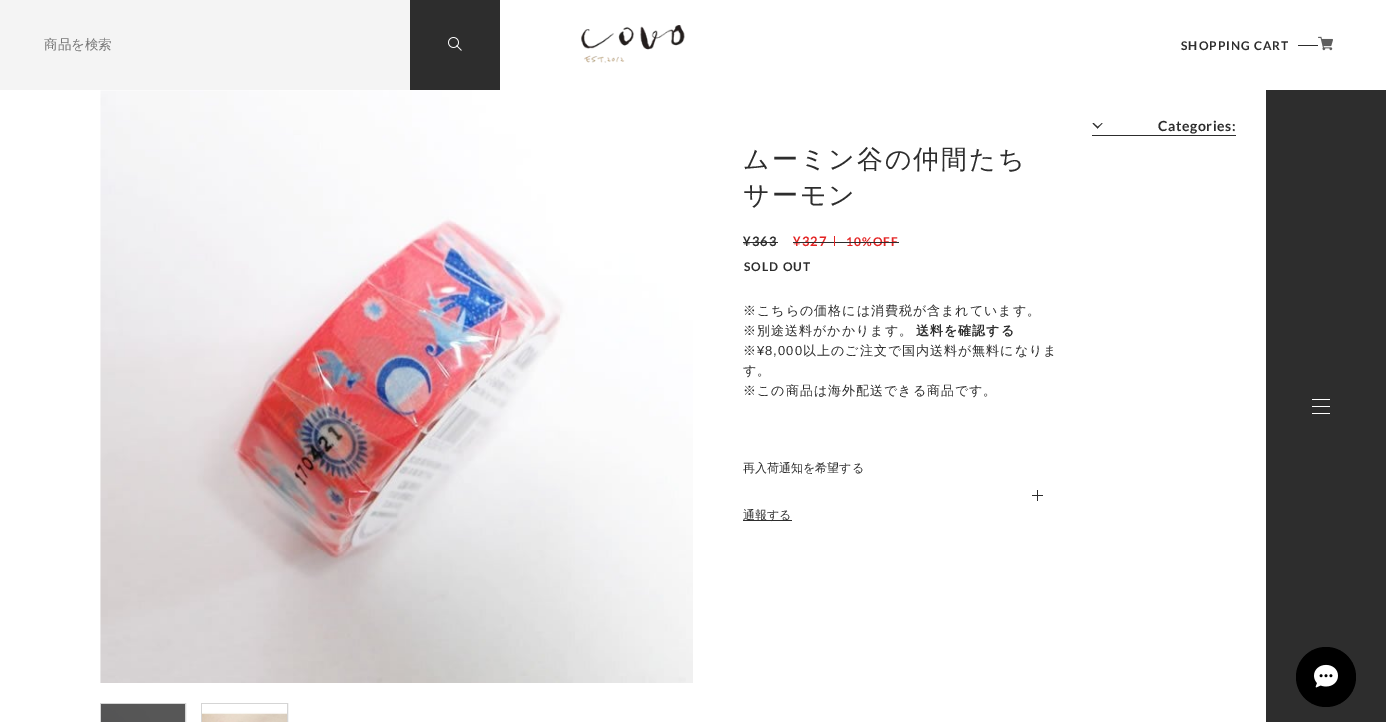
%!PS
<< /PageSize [1386 722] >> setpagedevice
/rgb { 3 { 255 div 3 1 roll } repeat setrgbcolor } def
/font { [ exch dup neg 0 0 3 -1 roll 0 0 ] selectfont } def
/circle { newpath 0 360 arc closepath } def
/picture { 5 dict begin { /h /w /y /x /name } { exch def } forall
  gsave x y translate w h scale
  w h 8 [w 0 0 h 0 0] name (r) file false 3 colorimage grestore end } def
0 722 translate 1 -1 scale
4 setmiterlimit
255 255 255 rgb
0 0 1386 722 rectfill
244 244 244 rgb
0 0 410 90 rectfill
45 45 45 rgb
410 0 90 90 rectfill
(img/1.rgb) 448 37 14 14 picture
(img/2.rgb) 581 25 104 38 picture
1298 45 20 1 rectfill
1102 123 moveto 1102.5 123.5 lineto 1097.5 128.5 lineto 1097 127.5 lineto closepath fill
1093.5 123 moveto 1098.5 127.5 lineto 1097.5 128.5 lineto 1092.5 123.5 lineto closepath fill
[
  [1092 135 144 1 45 45 45]
  [1266 90 120 632 45 45 45]
  [1312 399 18 1 255 255 255]
  [1312 406 18 1 255 255 255]
  [1312 413 18 1 255 255 255]
] { aload pop rgb rectfill } forall
(img/3.rgb) 1318 36 15 15 picture
(img/4.rgb) 100 90 593 593 picture
45 45 45 rgb
100.5 703.5 moveto 185.5 703.5 lineto 185.5 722.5 lineto 100.5 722.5 lineto closepath gsave fill grestore
213 213 213 rgb
stroke
(img/5.rgb) 101 704 84 18 picture
201.5 703.5 86 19 rectstroke
(img/6.rgb) 202 704 85 18 picture
[
  [743 242 35 1 45 45 45]
  [1032 495 11 1 45 45 45]
  [1037 490 1 11 45 45 45]
  [743 520 49 1 45 45 45]
] { aload pop rgb rectfill } forall
0 0 0 rgb
1326 677 30 circle fill
(img/7.rgb) 1314 664 24 24 picture
/WenQuanYiZenHei-Medium 13.5 font
117 117 117 rgb
44 49 moveto (商品を検索) show
/Lato-Bold 12 font
45 45 45 rgb
1181 50 moveto 1 0 (SHOPPING CART) ashow
/Lato-Bold 14 font
1158 131 moveto 0.6 0 (Categories:) ashow
/WenQuanYiZenHei-Medium 26 font
743 168 moveto 2 0 (ムーミン谷の仲間たち) ashow
743 204 moveto 2 0 (サーモン) ashow
/Lato-Bold 13 font
743 246 moveto 1 0 (¥363) ashow
228 36 36 rgb
793 246 moveto 1 0 (¥327) ashow
/Lato-Bold 12 font
846 246 moveto 1 0 (10%OFF) ashow
45 45 45 rgb
793 242 106 1 rectfill
228 36 36 rgb
834 236 1 10 rectfill
45 45 45 rgb
744 271 moveto 1 0 (SOLD OUT) ashow
/WenQuanYiZenHei-Medium 13 font
743 315 moveto 1 0 (※こちらの価格には消費税が含まれています。) ashow
743 335 moveto 1 0 (※別途送料がかかります。) ashow
/WenQuanYiZenHei-Bold 13 font
916 335 moveto 1 0 (送料を確認する) ashow
/WenQuanYiZenHei-Medium 13 font
743 355 moveto 1 0 (※) ashow
/LiberationSans-Regular 13 font
757 355 moveto 1 0 (¥8,000) ashow
/WenQuanYiZenHei-Medium 13 font
803 355 moveto 1 0 (以上のご注文で国内送料が無料になりま) ashow
743 375 moveto 1 0 (す。) ashow
743 395 moveto 1 0 (※この商品は海外配送できる商品です。) ashow
/WenQuanYiZenHei-Medium 12 font
743 472 moveto (再入荷通知を希望する) show
743 519 moveto (通報する) show
showpage
